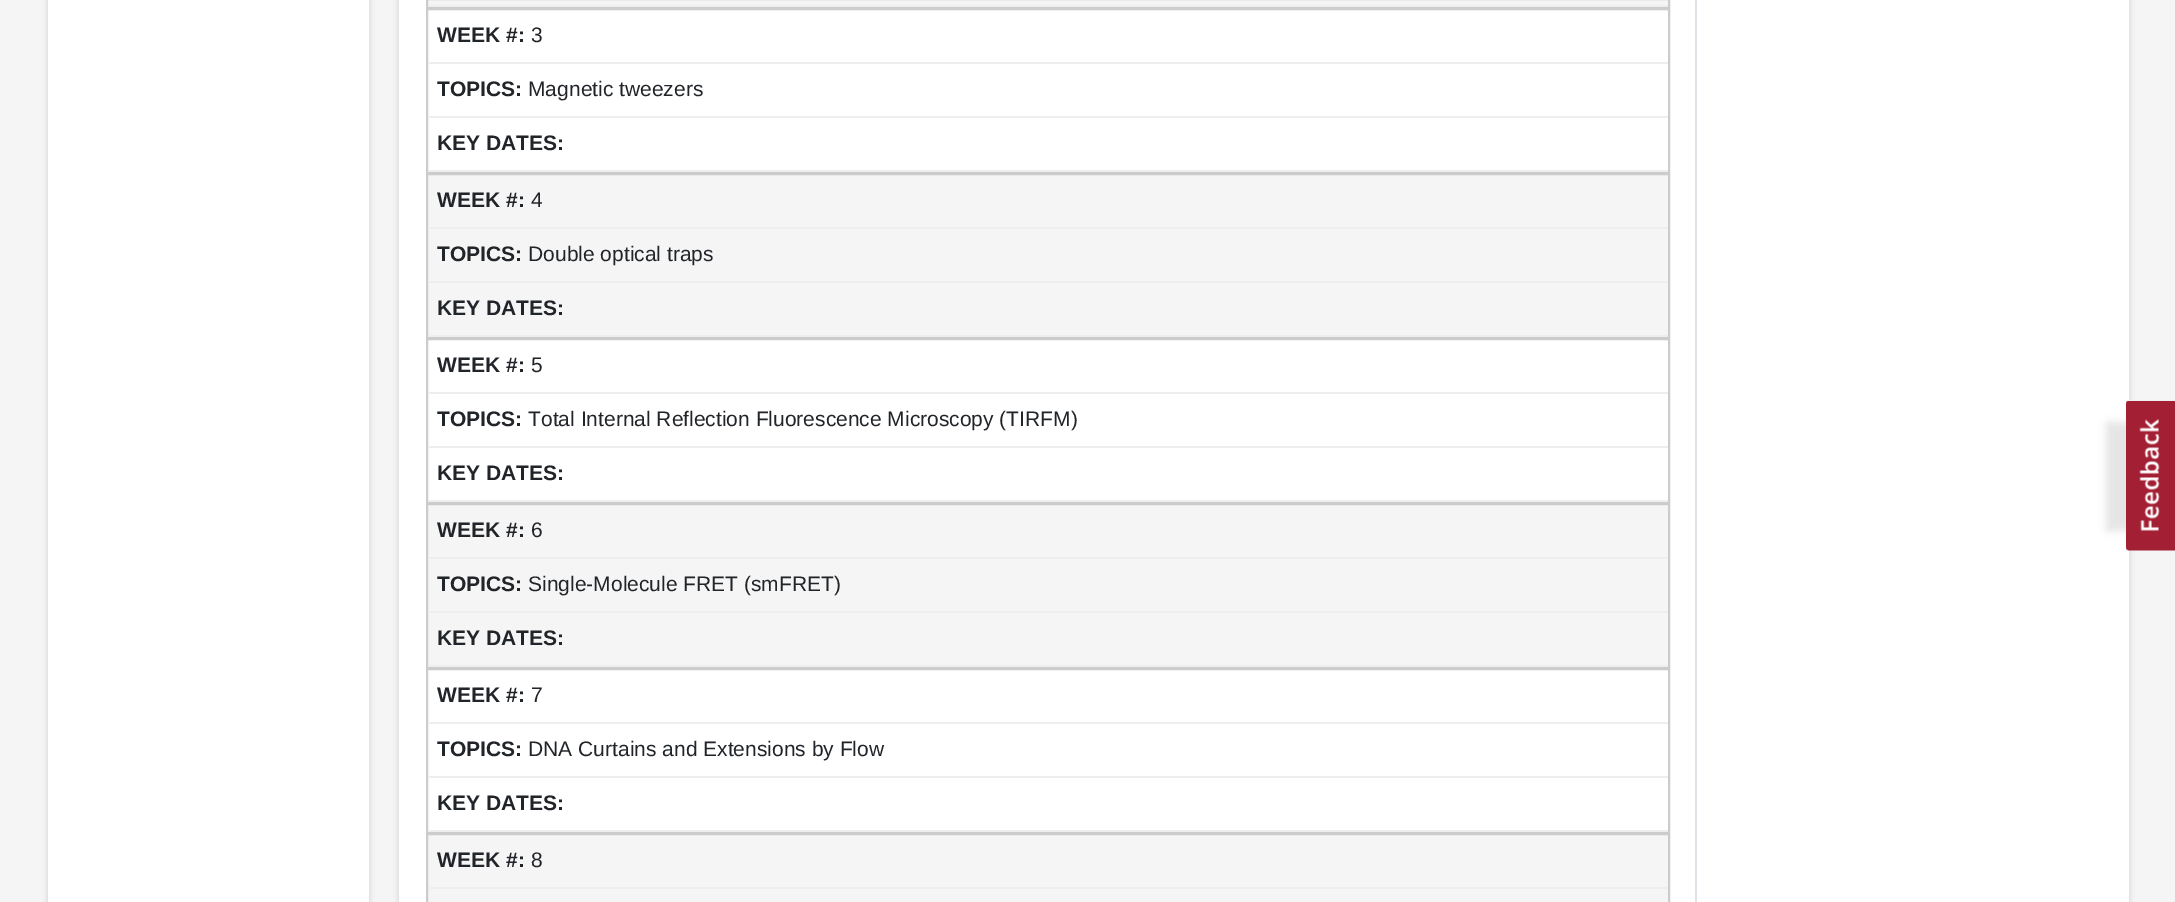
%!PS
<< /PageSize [2175 902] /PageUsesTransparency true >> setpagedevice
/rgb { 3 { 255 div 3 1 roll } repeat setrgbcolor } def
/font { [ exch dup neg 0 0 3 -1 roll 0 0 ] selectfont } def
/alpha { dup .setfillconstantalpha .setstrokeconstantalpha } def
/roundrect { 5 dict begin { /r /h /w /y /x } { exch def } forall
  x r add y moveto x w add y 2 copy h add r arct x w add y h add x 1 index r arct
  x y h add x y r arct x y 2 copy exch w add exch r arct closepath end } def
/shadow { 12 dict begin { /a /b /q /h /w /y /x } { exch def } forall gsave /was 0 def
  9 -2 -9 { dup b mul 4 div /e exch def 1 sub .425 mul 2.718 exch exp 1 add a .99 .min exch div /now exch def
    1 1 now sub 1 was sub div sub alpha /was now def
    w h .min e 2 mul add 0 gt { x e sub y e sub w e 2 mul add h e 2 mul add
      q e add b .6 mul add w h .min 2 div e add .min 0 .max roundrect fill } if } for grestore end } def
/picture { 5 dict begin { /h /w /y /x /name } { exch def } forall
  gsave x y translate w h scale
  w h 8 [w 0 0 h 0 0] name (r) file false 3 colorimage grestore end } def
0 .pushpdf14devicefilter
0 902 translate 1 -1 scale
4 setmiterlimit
245 245 245 rgb
0 0 2175 902 rectfill
0 0 0 rgb
48 -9 321 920 0 3 0.16 shadow
255 255 255 rgb
48 0 321 902 rectfill
0 0 0 rgb
399 -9 1730 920 0 3 0.16 shadow
255 255 255 rgb
399 0 1730 902 rectfill
245 245 245 rgb
426 0 1244 5 rectfill
204 204 204 rgb
2 setlinewidth
427 -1 1242 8 rectstroke
238 238 238 rgb
428 5 1240 2 rectfill
204 204 204 rgb
427 9 1242 163 rectstroke
[
  [428 62 1240 2 238 238 238]
  [428 116 1240 2 238 238 238]
  [428 170 1240 2 238 238 238]
  [428 175 1240 160 245 245 245]
] { aload pop rgb rectfill } forall
204 204 204 rgb
427 174 1242 163 rectstroke
[
  [428 227 1240 2 238 238 238]
  [428 281 1240 2 238 238 238]
  [428 335 1240 2 238 238 238]
] { aload pop rgb rectfill } forall
204 204 204 rgb
427 339 1242 163 rectstroke
[
  [428 392 1240 2 238 238 238]
  [428 446 1240 2 238 238 238]
  [428 500 1240 2 238 238 238]
  [428 505 1240 160 245 245 245]
] { aload pop rgb rectfill } forall
204 204 204 rgb
427 504 1242 163 rectstroke
[
  [428 557 1240 2 238 238 238]
  [428 611 1240 2 238 238 238]
  [428 665 1240 2 238 238 238]
] { aload pop rgb rectfill } forall
204 204 204 rgb
427 669 1242 163 rectstroke
[
  [428 722 1240 2 238 238 238]
  [428 776 1240 2 238 238 238]
  [428 830 1240 2 238 238 238]
] { aload pop rgb rectfill } forall
245 245 245 rgb
427 834 moveto 1669 834 lineto 1669 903 lineto 427 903 lineto closepath gsave fill grestore
204 204 204 rgb
stroke
238 238 238 rgb
428 887 1240 2 rectfill
222 226 230 rgb
1695 0 2 902 rectfill
0 0 0 rgb
2106 422 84 109 3 4 0.1 shadow
239 239 239 rgb
2126 548 moveto 2126 404 lineto 2126 402 2127 400 2128 400 curveto 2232 400 lineto 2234 400 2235 402 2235 404 curveto 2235 548 lineto 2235 549 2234 550 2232 550 curveto 2128 550 lineto 2127 550 2126 549 2126 548 curveto closepath fill
(img/1.rgb) 2126 401 49 150 picture
/LiberationSans-Bold 21 font
33 37 41 rgb
437 42 moveto (WEEK #:) show
/LiberationSans-Regular 21 font
531 42 moveto (3) show
/LiberationSans-Bold 21 font
437 96 moveto (TOPICS:) show
/LiberationSans-Regular 21 font
528 96 moveto (Magnetic tweezers) show
/LiberationSans-Bold 21 font
437 150 moveto (KEY DATES:) show
437 207 moveto (WEEK #:) show
/LiberationSans-Regular 21 font
531 207 moveto (4) show
/LiberationSans-Bold 21 font
437 261 moveto (TOPICS:) show
/LiberationSans-Regular 21 font
528 261 moveto (Double optical traps) show
/LiberationSans-Bold 21 font
437 315 moveto (KEY DATES:) show
437 372 moveto (WEEK #:) show
/LiberationSans-Regular 21 font
531 372 moveto (5) show
/LiberationSans-Bold 21 font
437 426 moveto (TOPICS:) show
/LiberationSans-Regular 21 font
528 426 moveto (Total Internal Reflection Fluorescence Microscopy \(TIRFM\)) show
/LiberationSans-Bold 21 font
437 480 moveto (KEY DATES:) show
437 537 moveto (WEEK #:) show
/LiberationSans-Regular 21 font
531 537 moveto (6) show
/LiberationSans-Bold 21 font
437 591 moveto (TOPICS:) show
/LiberationSans-Regular 21 font
528 591 moveto (Single-Molecule FRET \(smFRET\)) show
/LiberationSans-Bold 21 font
437 645 moveto (KEY DATES:) show
437 702 moveto (WEEK #:) show
/LiberationSans-Regular 21 font
531 702 moveto (7) show
/LiberationSans-Bold 21 font
437 756 moveto (TOPICS:) show
/LiberationSans-Regular 21 font
528 756 moveto (DNA Curtains and Extensions by Flow) show
/LiberationSans-Bold 21 font
437 810 moveto (KEY DATES:) show
437 867 moveto (WEEK #:) show
/LiberationSans-Regular 21 font
531 867 moveto (8) show
.poppdf14devicefilter showpage
